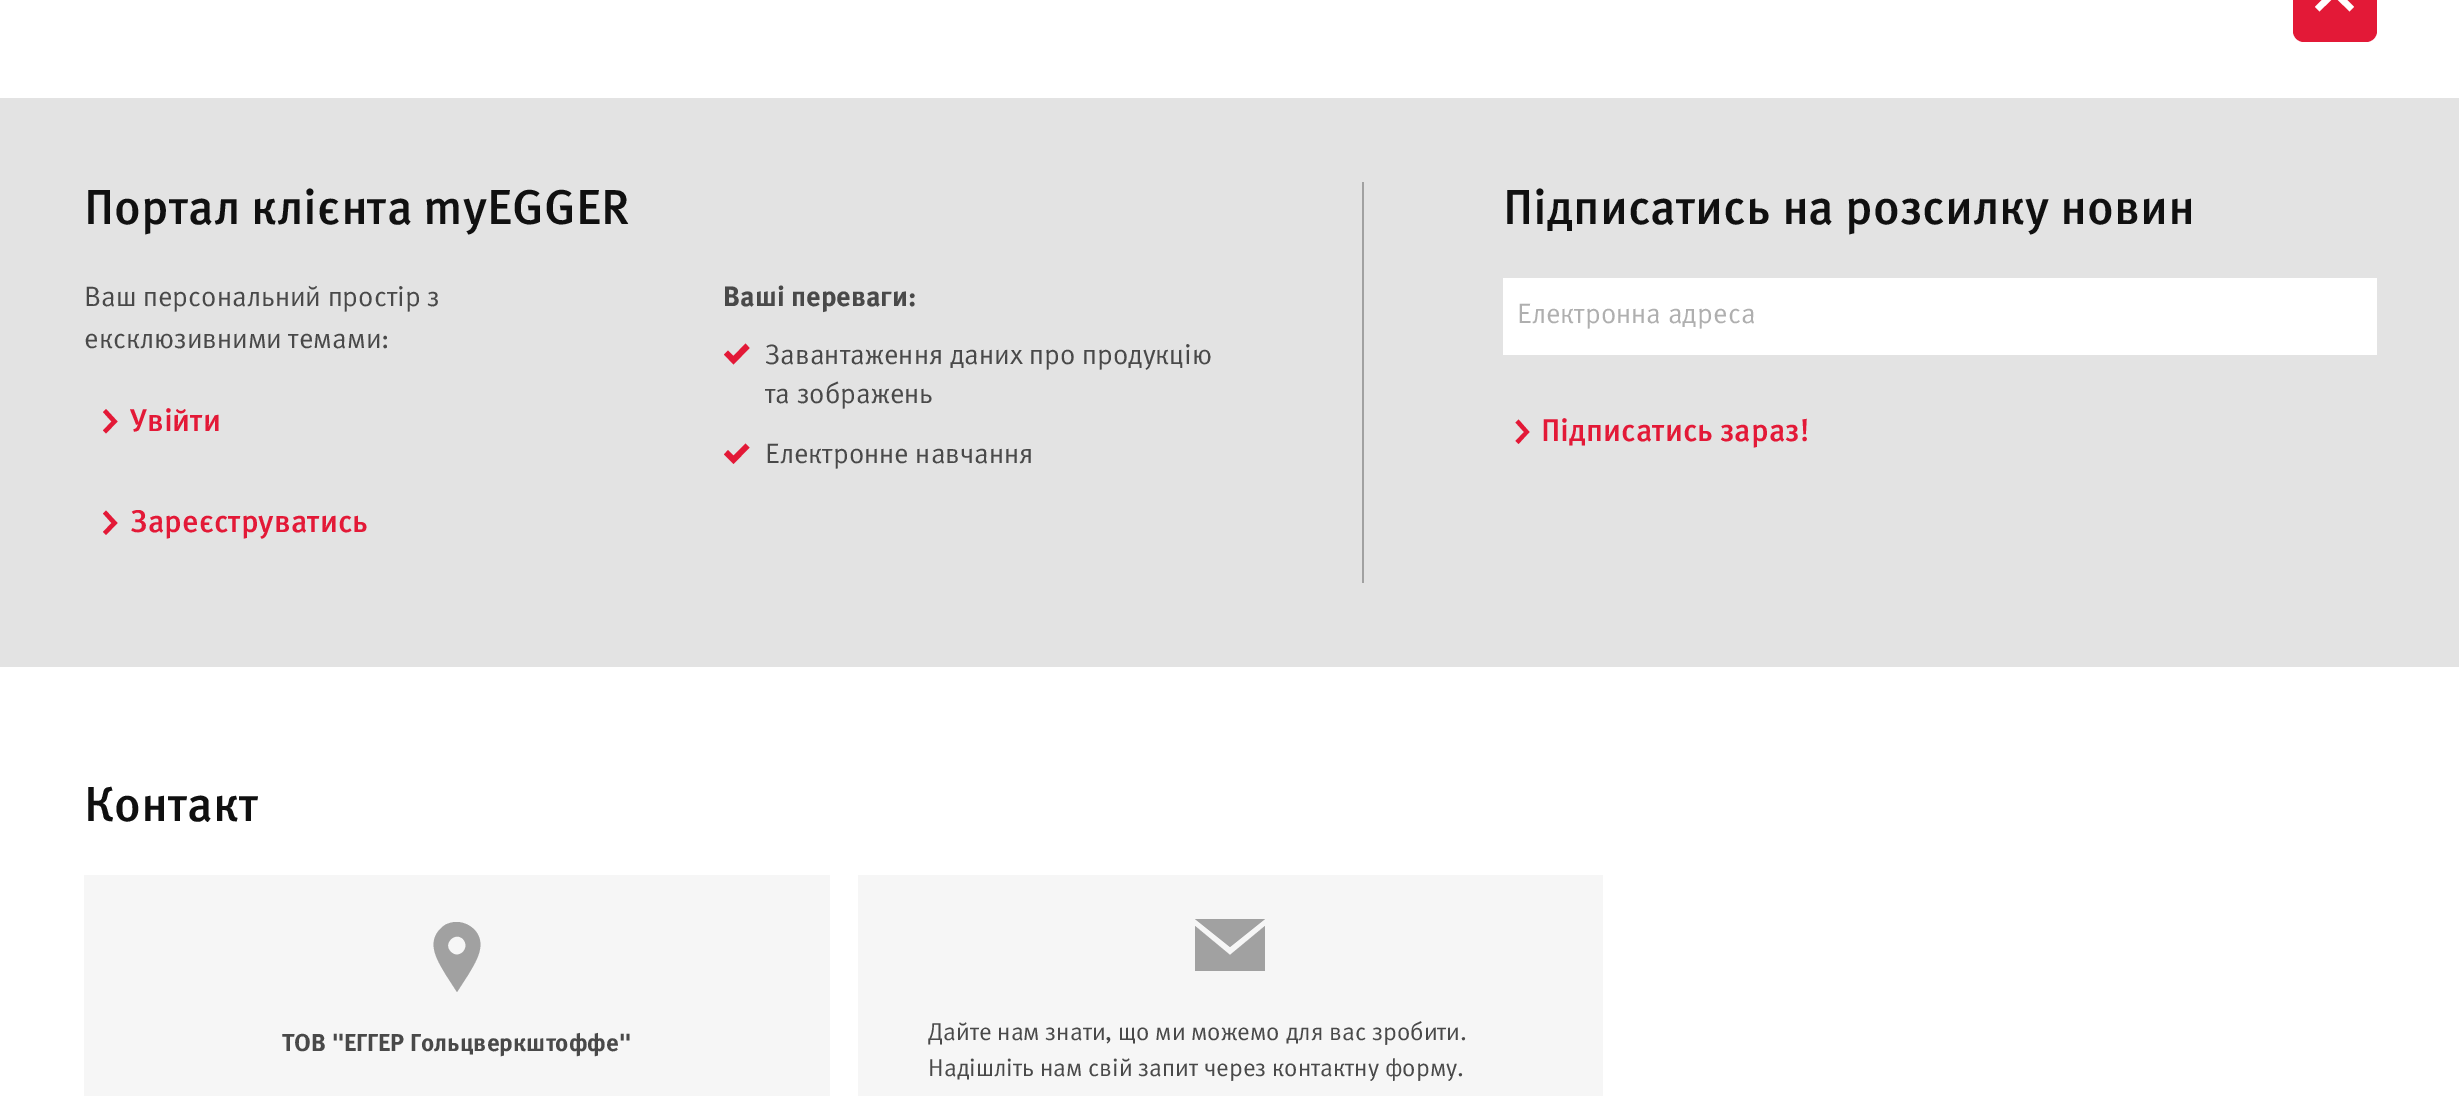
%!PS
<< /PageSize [2459 1096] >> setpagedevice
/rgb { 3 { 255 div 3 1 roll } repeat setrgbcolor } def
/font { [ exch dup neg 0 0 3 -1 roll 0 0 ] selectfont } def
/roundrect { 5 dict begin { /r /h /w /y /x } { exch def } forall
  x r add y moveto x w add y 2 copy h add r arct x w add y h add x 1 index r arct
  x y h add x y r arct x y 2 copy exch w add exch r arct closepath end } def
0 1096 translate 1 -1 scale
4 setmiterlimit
255 255 255 rgb
0 0 2459 1096 rectfill
227 25 55 rgb
2293 -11 84 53 11 roundrect fill
255 255 255 rgb
2349.5 11.5 moveto 2334.5 -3.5 lineto 2319.5 11.5 lineto 2315 7 lineto 2334.5 -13 lineto 2354 7 lineto closepath fill
227 227 227 rgb
0 98 2459 569 rectfill
161 161 161 rgb
1362 182 2 401 rectfill
227 25 55 rgb
106 409 moveto 117.5 421.5 lineto 106 433.5 lineto 103 430.5 lineto 111.5 421.5 lineto 103 412 lineto closepath fill
106 510.5 moveto 117.5 523 lineto 106 535 lineto 103 532 lineto 111.5 523 lineto 103 513.5 lineto closepath fill
733.5 356 moveto 728 350.5 lineto 724 354.5 lineto 733.5 364.5 lineto 749.5 348 lineto 745.5 343.5 lineto closepath fill
733.5 455.5 moveto 728 450 lineto 724 454.5 lineto 733.5 464 lineto 749.5 447.5 lineto 745.5 443.5 lineto closepath fill
255 255 255 rgb
1503 278 874 77 rectfill
227 25 55 rgb
1518.5 419.5 moveto 1529.5 432 lineto 1518.5 444 lineto 1515.5 441 lineto 1524 432 lineto 1515.5 422.5 lineto closepath fill
246 246 246 rgb
84 875 746 221 rectfill
161 161 161 rgb
451 952 moveto 459 960 471 948 463 939 curveto 455 931 442 944 451 952 curveto closepath 445 925 moveto 452 921 461 921 468 925 curveto 472 927 475 930 477 933 curveto 486 947 475 963 468 975 curveto 457 992 lineto 446 975 lineto 439 963 428 947 437 933 curveto 439 930 442 927 445 925 curveto closepath fill
246 246 246 rgb
858 875 745 221 rectfill
161 161 161 rgb
1230 955 moveto 1265 926 lineto 1265 971 lineto 1195 971 lineto 1195 926 lineto closepath 1230 947 moveto 1195 919 lineto 1265 919 lineto closepath fill
/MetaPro-Medium 49 font
16 16 16 rgb
84 224 moveto (Портал клієнта myEGGER) show
/MetaPro-Regular 28 font
73 73 73 rgb
84 306 moveto (Ваш персональний простір з) show
84 348 moveto (ексклюзивними темами:) show
/MetaPro-Medium 31.5 font
227 25 55 rgb
130 431 moveto (Увійти) show
130 532 moveto (Зареєструватись) show
/MetaPro-Bold 28 font
73 73 73 rgb
723 306 moveto (Ваші переваги:) show
/MetaPro-Regular 28 font
[
  [(Завантаження даних про продукцію) 765 364]
  [(та зображень) 765 403]
  [(Електронне навчання) 765 463]
] { aload pop moveto show } forall
/MetaPro-Medium 49 font
16 16 16 rgb
1503 224 moveto (Підписатись на розсилку новин) show
/MetaPro-Regular 28 font
175 175 175 rgb
1517 323 moveto (Електронна адреса) show
/MetaPro-Medium 31.5 font
227 25 55 rgb
1541 441 moveto (Підписатись зараз!) show
/MetaPro-Medium 49 font
16 16 16 rgb
84 821 moveto (Контакт) show
/MetaPro-Bold 24.5 font
73 73 73 rgb
282 1051 moveto (ТОВ "ЕГГЕР Гольцверкштоффе") show
/MetaPro-Regular 24.5 font
928 1040 moveto (Дайте нам знати, що ми можемо для вас зробити.) show
928 1076 moveto (Надішліть нам свій запит через контактну форму.) show
showpage
